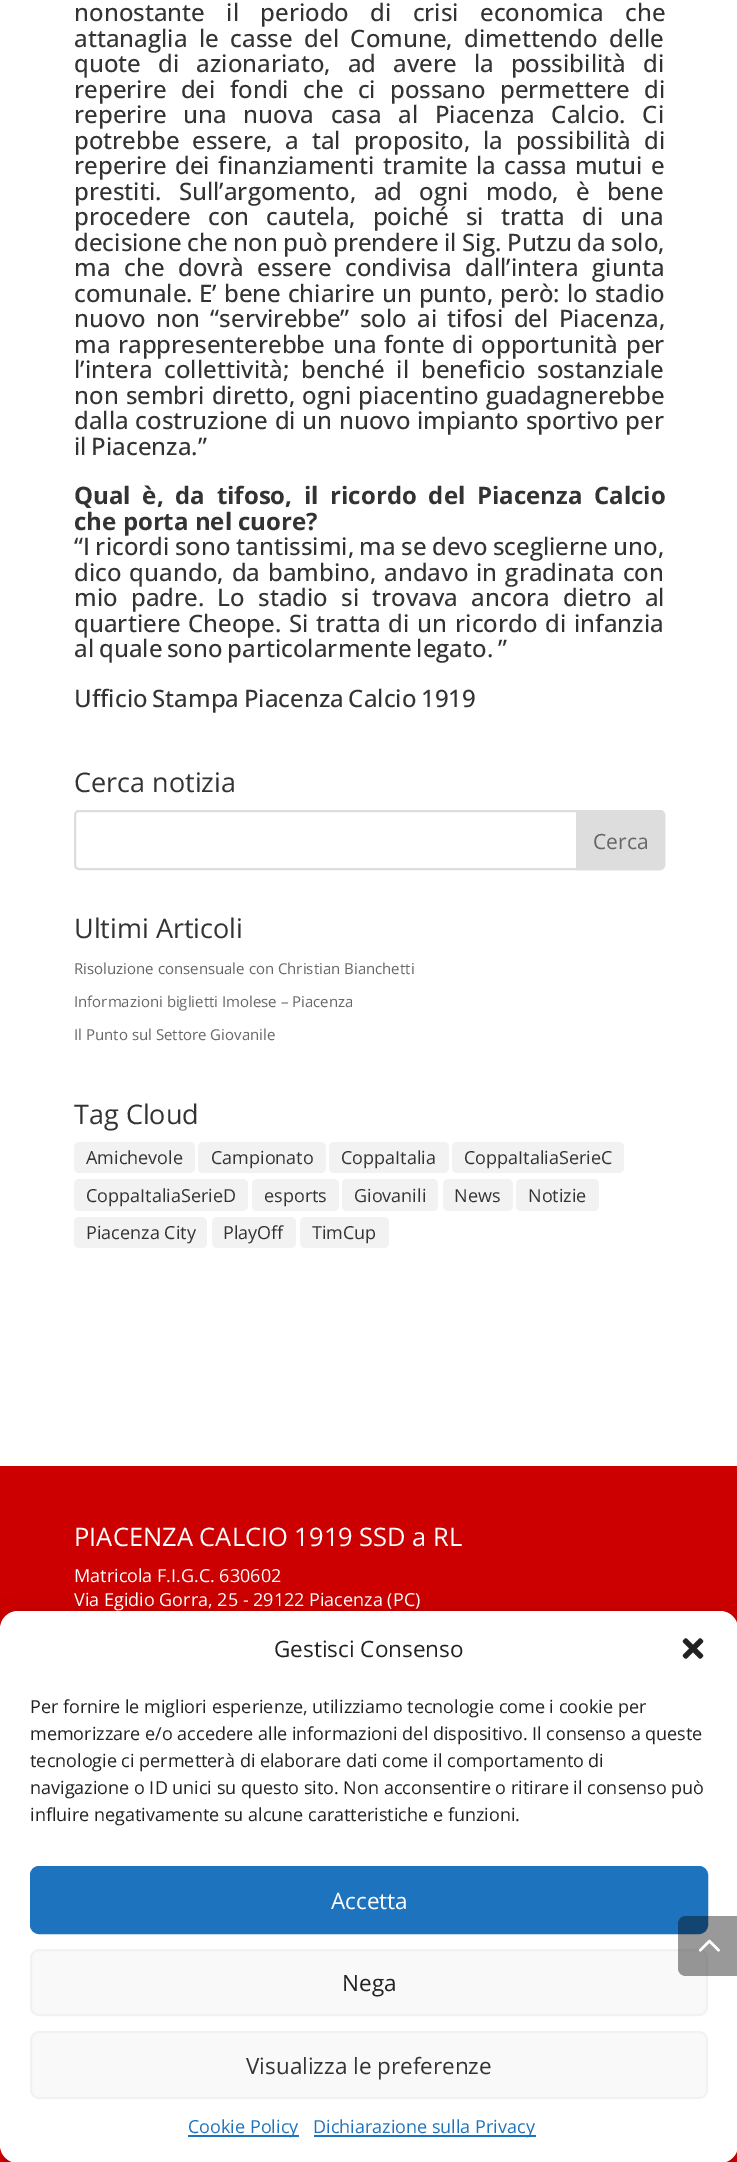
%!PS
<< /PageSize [737 2162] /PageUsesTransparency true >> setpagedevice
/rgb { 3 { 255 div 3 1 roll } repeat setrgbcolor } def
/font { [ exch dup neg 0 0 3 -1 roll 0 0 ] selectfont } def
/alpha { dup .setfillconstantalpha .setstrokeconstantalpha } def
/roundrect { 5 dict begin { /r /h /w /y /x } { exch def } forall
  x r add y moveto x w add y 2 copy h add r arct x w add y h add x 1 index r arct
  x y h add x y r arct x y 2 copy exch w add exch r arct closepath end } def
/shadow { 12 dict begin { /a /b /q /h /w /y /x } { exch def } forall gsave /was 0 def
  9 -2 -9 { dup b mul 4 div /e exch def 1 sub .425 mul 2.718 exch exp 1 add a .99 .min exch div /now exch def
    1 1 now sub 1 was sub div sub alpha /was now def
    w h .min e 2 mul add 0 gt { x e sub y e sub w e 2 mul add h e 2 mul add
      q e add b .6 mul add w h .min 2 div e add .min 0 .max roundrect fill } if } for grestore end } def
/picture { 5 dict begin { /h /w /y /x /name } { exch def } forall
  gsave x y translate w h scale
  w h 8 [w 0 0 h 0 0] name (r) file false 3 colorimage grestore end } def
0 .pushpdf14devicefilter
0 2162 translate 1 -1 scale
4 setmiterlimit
255 255 255 rgb
0 0 737 2162 rectfill
221 221 221 rgb
2 setlinewidth
75 811 589 58 4 roundrect stroke
577 811 moveto 660 811 lineto 662 811 664 813 664 815 curveto 664 865 lineto 664 867 662 869 660 869 curveto 577 869 lineto closepath gsave fill grestore
stroke
242 242 242 rgb
74 1142 121 31 5 roundrect fill
198 1142 128 31 5 roundrect fill
329 1142 120 31 5 roundrect fill
452 1142 172 31 5 roundrect fill
74 1179 174 32 5 roundrect fill
252 1179 87 32 5 roundrect fill
342 1179 96 32 5 roundrect fill
443 1179 70 32 5 roundrect fill
516 1179 83 32 5 roundrect fill
74 1217 133 31 5 roundrect fill
212 1217 84 31 5 roundrect fill
300 1217 89 31 5 roundrect fill
204 0 0 rgb
0 1466 737 163 rectfill
255 0 0 rgb
0 2145 737 17 rectfill
0 0 0 rgb
0 1620 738 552 18 4.5 0.23 shadow
0 1626 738 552 18 15 0.19 shadow
255 255 255 rgb
0 1611 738 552 18 roundrect fill
30 115 190 rgb
31 1867 676 66 8 roundrect gsave fill grestore
stroke
249 249 249 rgb
31 1950 676 65 8 roundrect gsave fill grestore
242 242 242 rgb
stroke
0.4 alpha
0 0 0 rgb
686 1916 moveto 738 1916 lineto 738 1976 lineto 686 1976 lineto 681.5 1976 678 1972.5 678 1968 curveto 678 1924 lineto 678 1919.5 681.5 1916 686 1916 curveto closepath fill
1 alpha
(img/1.rgb) 698 1939 22 13 picture
(img/2.rgb) 682 1638 22 21 picture
249 249 249 rgb
31 2032 676 66 8 roundrect gsave fill grestore
242 242 242 rgb
stroke
30 115 190 rgb
188 2135 111 2 rectfill
314 2135 222 2 rectfill
/OpenSans-Medium 24 font
51 51 51 rgb
74 21 moveto 15 0 32 (nonostante il periodo di crisi economica che) widthshow
74 47 moveto 5.25 0 32 (attanaglia le casse del Comune, dimettendo delle) widthshow
74 72 moveto 10.75 0 32 (quote di azionariato, ad avere la possibilità di) widthshow
74 98 moveto 8 0 32 (reperire dei fondi che ci possano permettere di) widthshow
74 123 moveto 10.5 0 32 (reperire una nuova casa al Piacenza Calcio. Ci) widthshow
74 149 moveto 6.5 0 32 (potrebbe essere, a tal proposito, la possibilità di) widthshow
74 174 moveto 2.25 0 32 (reperire dei finanziamenti tramite la cassa mutui e) widthshow
74 200 moveto 11 0 32 (prestiti. Sull’argomento, ad ogni modo, è bene) widthshow
74 225 moveto 10.75 0 32 (procedere con cautela, poiché si tratta di una) widthshow
74 251 moveto -0.75 0 32 (decisione che non può prendere il Sig. Putzu da solo,) widthshow
74 276 moveto 7.5 0 32 (ma che dovrà essere condivisa dall’intera giunta) widthshow
74 302 moveto (comunale.) show
199 302 moveto 0.75 0 32 (E’ bene chiarire un punto, però: lo stadio) widthshow
74 327 moveto 4 0 32 (nuovo non “servirebbe” solo ai tifosi del Piacenza,) widthshow
74 353 moveto 1.5 0 32 (ma rappresenterebbe una fonte di opportunità per) widthshow
74 378 moveto 5.5 0 32 (l’intera collettività; benché il beneficio sostanziale) widthshow
74 404 moveto 0.75 0 32 (non sembri diretto, ogni piacentino guadagnerebbe) widthshow
74 429 moveto 0.25 0 32 (dalla costruzione di un nuovo impianto sportivo per) widthshow
74 455 moveto -1.5 0 32 (il Piacenza.”) widthshow
/OpenSans-Bold 24 font
74 504 moveto 5.5 0 32 (Qual è, da tifoso, il ricordo del Piacenza Calcio) widthshow
74 530 moveto (che porta nel cuore?) show
/OpenSans-Medium 24 font
74 555 moveto -0.75 0 32 (“I ricordi sono tantissimi, ma se devo sceglierne uno,) widthshow
74 581 moveto 1.75 0 32 (dico quando, da bambino, andavo in gradinata con) widthshow
74 606 moveto 7 0 32 (mio padre. Lo stadio si trovava ancora dietro al) widthshow
74 632 moveto 1.5 0 32 (quartiere Cheope. Si tratta di un ricordo di infanzia) widthshow
74 657 moveto -1.5 0 32 (al quale sono particolarmente legato. ”) widthshow
74 707 moveto -1.5 0 32 (Ufficio Stampa Piacenza Calcio 1919) widthshow
/OpenSans-Regular 27 font
74 792 moveto (Cerca notizia) show
/OpenSans-Regular 21 font
102 102 102 rgb
593 849 moveto (Cerca) show
/OpenSans-Regular 27 font
51 51 51 rgb
74 938 moveto (Ultimi Articoli) show
/OpenSans-Regular 15 font
102 102 102 rgb
[
  [(Risoluzione consensuale con Christian Bianchetti) 74 974]
  [(Informazioni biglietti Imolese – Piacenza) 74 1007]
  [(Il Punto sul Settore Giovanile) 74 1040]
] { aload pop moveto show } forall
/OpenSans-Regular 27 font
51 51 51 rgb
74 1124 moveto (Tag Cloud) show
/OpenSans-Regular 18 font
[
  [(Amichevole) 86 1164]
  [(Campionato) 211 1164]
  [(CoppaItalia) 341 1164]
  [(CoppaItaliaSerieC) 464 1164]
  [(CoppaItaliaSerieD) 86 1202]
  [(esports) 264 1202]
  [(Giovanili) 354 1202]
  [(News) 454 1202]
  [(Notizie) 528 1202]
  [(Piacenza City) 86 1239]
  [(PlayOff) 223 1239]
  [(TimCup) 312 1239]
] { aload pop moveto show } forall
/OpenSans-Regular 25.5 font
255 255 255 rgb
74 1546 moveto (PIACENZA CALCIO 1919 SSD a RL) show
/OpenSans-Regular 18 font
74 1582 moveto (Matricola F.I.G.C. 630602) show
74 1606 moveto (Via Egidio Gorra, 25 - 29122 Piacenza \(PC\)) show
/OpenSans-Regular 22.5 font
34 34 34 rgb
274 1657 moveto (Gestisci Consenso) show
/OpenSans-Regular 18 font
[
  [(Per fornire le migliori esperienze, utilizziamo tecnologie come i cookie per) 30 1713]
  [(memorizzare e/o accedere alle informazioni del dispositivo. Il consenso a queste) 30 1740]
  [(tecnologie ci permetterà di elaborare dati come il comportamento di) 30 1767]
  [(navigazione o ID unici su questo sito. Non acconsentire o ritirare il consenso può) 30 1794]
  [(influire negativamente su alcune caratteristiche e funzioni.) 30 1821]
] { aload pop moveto show } forall
/OpenSans-Regular 22.5 font
255 255 255 rgb
331 1909 moveto (Accetta) show
34 34 34 rgb
342 1991 moveto (Nega) show
51 51 51 rgb
246 2074 moveto (Visualizza le preferenze) show
/OpenSans-Regular 18 font
30 115 190 rgb
188 2133 moveto (Cookie Policy) show
313 2133 moveto (Dichiarazione sulla Privacy) show
.poppdf14devicefilter showpage
